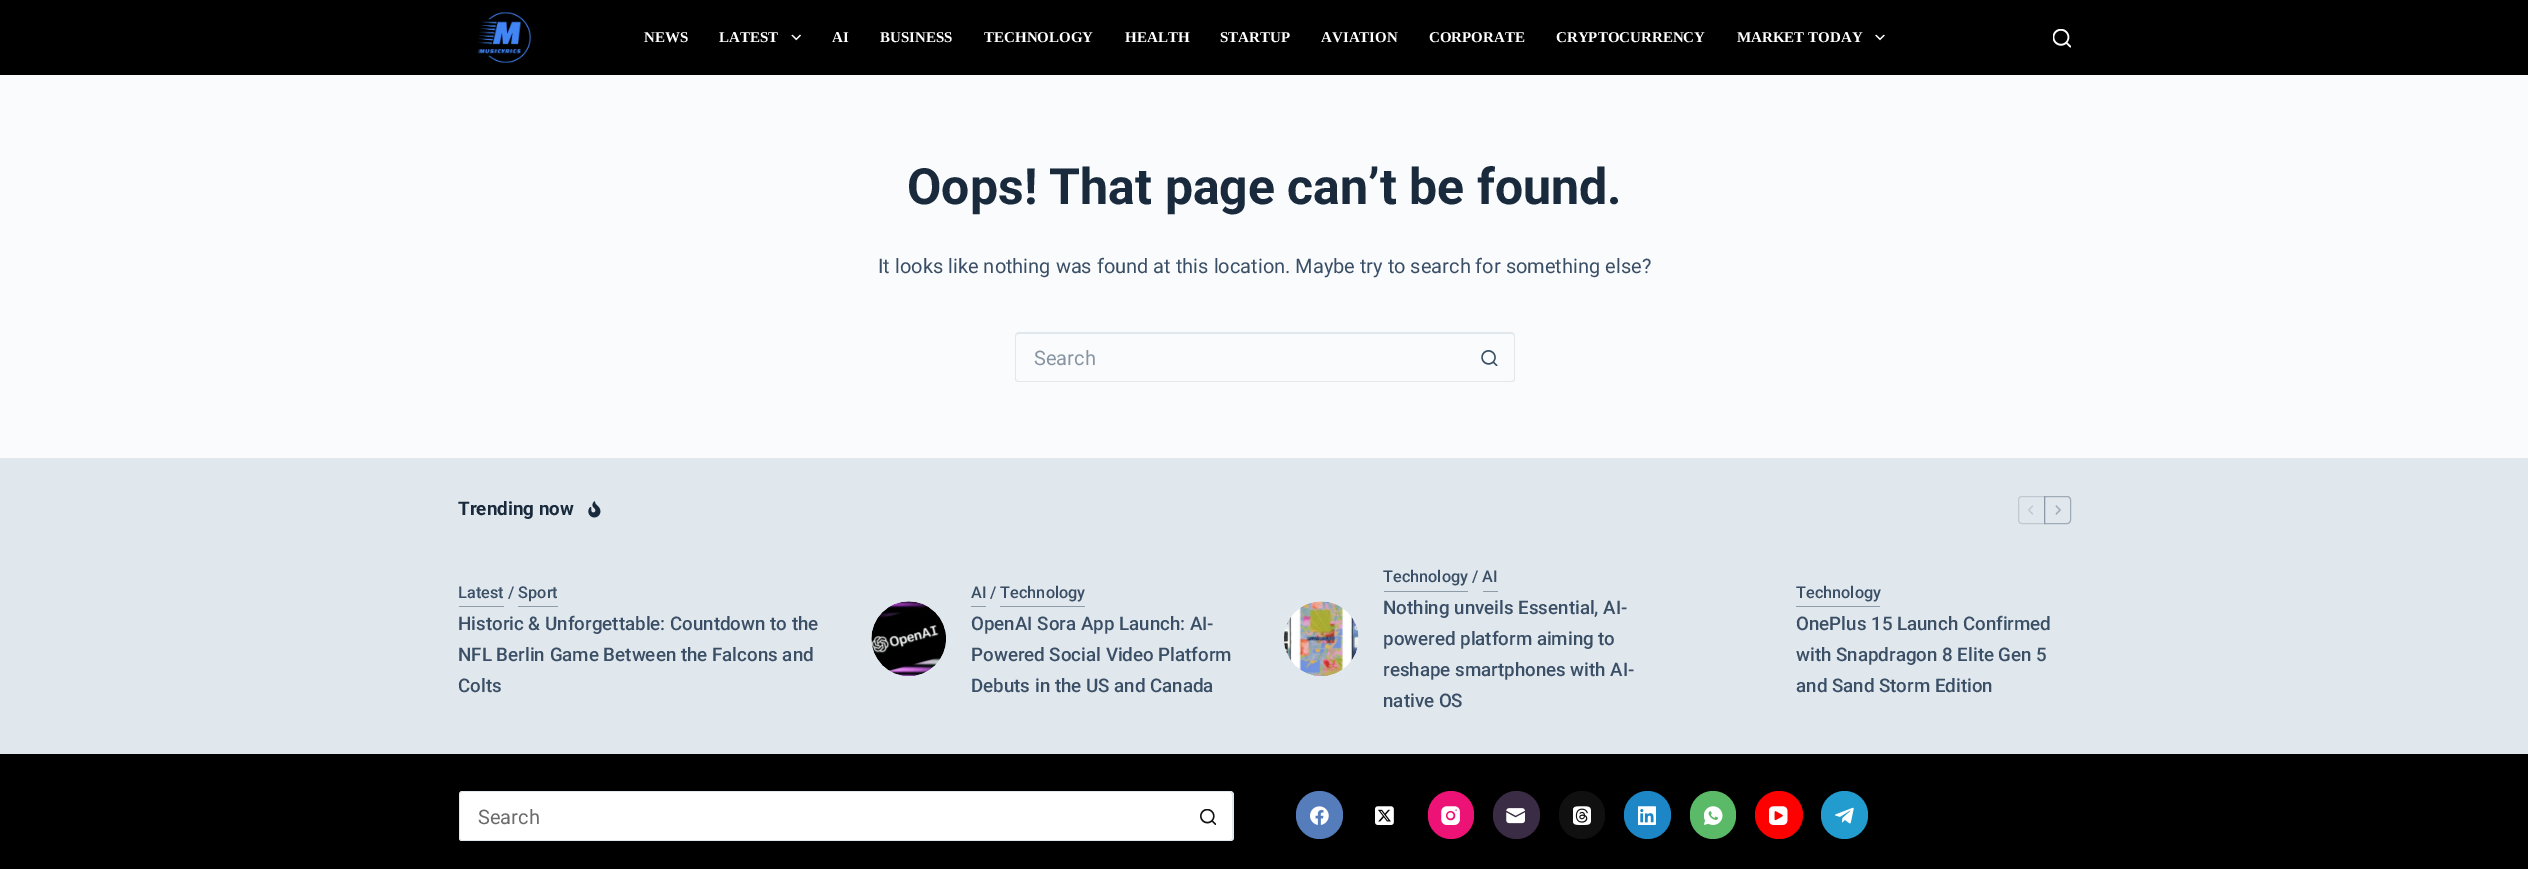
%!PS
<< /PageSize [2528 869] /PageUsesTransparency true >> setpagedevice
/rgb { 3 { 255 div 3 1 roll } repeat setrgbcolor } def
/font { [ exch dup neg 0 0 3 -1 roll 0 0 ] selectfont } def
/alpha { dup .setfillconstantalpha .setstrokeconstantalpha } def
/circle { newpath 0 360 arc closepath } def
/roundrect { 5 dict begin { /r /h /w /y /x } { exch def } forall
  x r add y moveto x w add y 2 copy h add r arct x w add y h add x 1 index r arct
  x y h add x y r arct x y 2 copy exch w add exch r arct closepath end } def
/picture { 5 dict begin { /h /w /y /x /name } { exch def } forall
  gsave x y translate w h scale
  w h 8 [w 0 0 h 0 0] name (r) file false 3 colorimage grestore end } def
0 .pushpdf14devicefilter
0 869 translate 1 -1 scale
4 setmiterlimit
250 251 252 rgb
0 0 2528 869 rectfill
0 0 0 rgb
0 0 2528 75 rectfill
(img/1.rgb) 477 12 55 51 picture
(img/2.rgb) 791 34 10 7 picture
(img/3.rgb) 1875 34 10 7 picture
(img/4.rgb) 2053 29 18 19 picture
225 232 237 rgb
1019 332 moveto 1465 332 lineto 1465 382 lineto 1019 382 lineto 1017 382 1015 381 1015 379 curveto 1015 336 lineto 1015 334 1017 332 1019 332 curveto closepath 1019 334 moveto 1465 334 lineto 1465 381 lineto 1019 381 lineto 1017 381 1016 380 1016 379 curveto 1016 336 lineto 1016 335 1017 334 1019 334 curveto closepath eofill
1465 332 moveto 1511 332 lineto 1513 332 1515 334 1515 336 curveto 1515 379 lineto 1515 381 1513 382 1511 382 curveto 1465 382 lineto closepath 1465 334 moveto 1511 334 lineto 1513 334 1514 335 1514 336 curveto 1514 379 lineto 1514 380 1513 381 1511 381 curveto 1465 381 lineto closepath eofill
(img/5.rgb) 1481 350 17 16 picture
0 458 2528 296 rectfill
(img/6.rgb) 588 501 13 17 picture
192 201 210 rgb
2022 496.5 moveto 2044.5 496.5 lineto 2044.5 523.5 lineto 2022 523.5 lineto 2020 523.5 2018.5 522 2018.5 520 curveto 2018.5 500 lineto 2018.5 498 2020 496.5 2022 496.5 curveto closepath stroke
(img/7.rgb) 2028 505 5 10 picture
0.4 alpha
58 79 102 rgb
2044.5 496.5 moveto 2067 496.5 lineto 2069 496.5 2070.5 498 2070.5 500 curveto 2070.5 520 lineto 2070.5 522 2069 523.5 2067 523.5 curveto 2044.5 523.5 lineto closepath stroke
1 alpha
(img/8.rgb) 2055 505 6 10 picture
142 156 170 rgb
459 606 45 1 rectfill
518 606 40 1 rectfill
(img/9.rgb) 871 601 75 75 picture
971 606 15 1 rectfill
1000 606 85 1 rectfill
(img/10.rgb) 1284 601 75 75 picture
[
  [1384 591 84 1 142 156 170]
  [1483 591 15 1 142 156 170]
  [1796 606 84 1 142 156 170]
  [0 754 2528 115 0 0 0]
] { aload pop rgb rectfill } forall
255 255 255 rgb
463 791 moveto 1184 791 lineto 1184 841 lineto 463 841 lineto 461 841 459 839 459 837 curveto 459 795 lineto 459 793 461 791 463 791 curveto closepath fill
225 232 237 rgb
462 791 moveto 1184 791 lineto 1184 841 lineto 462 841 lineto 460 841 459 840 459 838 curveto 459 795 lineto 459 793 460 791 462 791 curveto closepath 462 792 moveto 1184 792 lineto 1184 840 lineto 462 840 lineto 461 840 460 839 460 838 curveto 460 795 lineto 460 794 461 792 462 792 curveto closepath eofill
255 255 255 rgb
1184 791 moveto 1230 791 lineto 1232 791 1234 793 1234 795 curveto 1234 837 lineto 1234 839 1232 841 1230 841 curveto 1184 841 lineto closepath fill
225 232 237 rgb
1184 791 moveto 1230 791 lineto 1232 791 1234 793 1234 795 curveto 1234 838 lineto 1234 840 1232 841 1230 841 curveto 1184 841 lineto closepath 1184 792 moveto 1230 792 lineto 1231 792 1232 794 1232 795 curveto 1232 838 lineto 1232 839 1231 840 1230 840 curveto 1184 840 lineto closepath eofill
(img/11.rgb) 1200 809 16 16 picture
85 125 188 rgb
1296 791 47 48 23.5 roundrect fill
(img/12.rgb) 1310 806 19 19 picture
(img/13.rgb) 1375 806 19 19 picture
237 19 118 rgb
1428 791 46 48 23 roundrect fill
(img/14.rgb) 1441 806 19 19 picture
57 44 68 rgb
1493 791 47 48 23.5 roundrect fill
(img/15.rgb) 1506 808 19 16 picture
16 16 16 rgb
1559 791 46 48 23 roundrect fill
(img/16.rgb) 1573 806 18 19 picture
28 134 198 rgb
1624 791 47 48 23.5 roundrect fill
(img/17.rgb) 1638 806 18 19 picture
91 186 103 rgb
1690 791 46 48 23 roundrect fill
(img/18.rgb) 1704 806 19 19 picture
255 0 0 rgb
1779 815 24 circle fill
(img/19.rgb) 1769 806 19 19 picture
34 156 206 rgb
1821 791 47 48 23.5 roundrect fill
(img/20.rgb) 1835 807 19 17 picture
/LiberationSerif-Bold 15 font
255 255 255 rgb
[
  [(NEWS) 644 42]
  [(LATEST) 719 42]
  [(AI) 832 42]
  [(BUSINESS) 880 42]
  [(TECHNOLOGY) 984 42]
  [(HEALTH) 1125 42]
  [(STARTUP) 1220 42]
  [(AVIATION) 1321 42]
  [(CORPORATE) 1429 42]
  [(CRYPTOCURRENCY) 1556 42]
  [(MARKET TODAY) 1737 42]
] { aload pop moveto show } forall
/Roboto-Bold 50 font
25 42 61 rgb
907 204 moveto (Oops! That page can’t be found.) show
/Roboto-Regular 20 font
58 79 102 rgb
878 273 moveto (It looks like nothing was found at this location. Maybe try to search for something else?) show
135 148 162 rgb
1034 365 moveto (Search) show
/Roboto-Bold 18.75 font
25 42 61 rgb
458 515 moveto (Trending now) show
/Roboto-Medium 16.25 font
58 79 102 rgb
458 598 moveto (Latest) show
508 598 moveto (/ Sport) show
/Roboto-Medium 18.75 font
[
  [(Historic & Unforgettable: Countdown to the) 458 630]
  [(NFL Berlin Game Between the Falcons and) 458 661]
  [(Colts) 458 692]
] { aload pop moveto show } forall
/Roboto-Medium 16.25 font
971 598 moveto (AI) show
990 598 moveto (/ Technology) show
/Roboto-Medium 18.75 font
[
  [(OpenAI Sora App Launch: AI-) 971 630]
  [(Powered Social Video Platform) 971 661]
  [(Debuts in the US and Canada) 971 692]
] { aload pop moveto show } forall
/Roboto-Medium 16.25 font
1383 582 moveto (Technology) show
1472 582 moveto (/ AI) show
/Roboto-Medium 18.75 font
[
  [(Nothing unveils Essential, AI-) 1383 614]
  [(powered platform aiming to) 1383 645]
  [(reshape smartphones with AI-) 1383 676]
  [(native OS) 1383 707]
] { aload pop moveto show } forall
/Roboto-Medium 16.25 font
1796 598 moveto (Technology) show
/Roboto-Medium 18.75 font
[
  [(OnePlus 15 Launch Confirmed) 1796 630]
  [(with Snapdragon 8 Elite Gen 5) 1796 661]
  [(and Sand Storm Edition) 1796 692]
] { aload pop moveto show } forall
/Roboto-Regular 20 font
107 107 107 rgb
478 824 moveto (Search) show
.poppdf14devicefilter showpage
